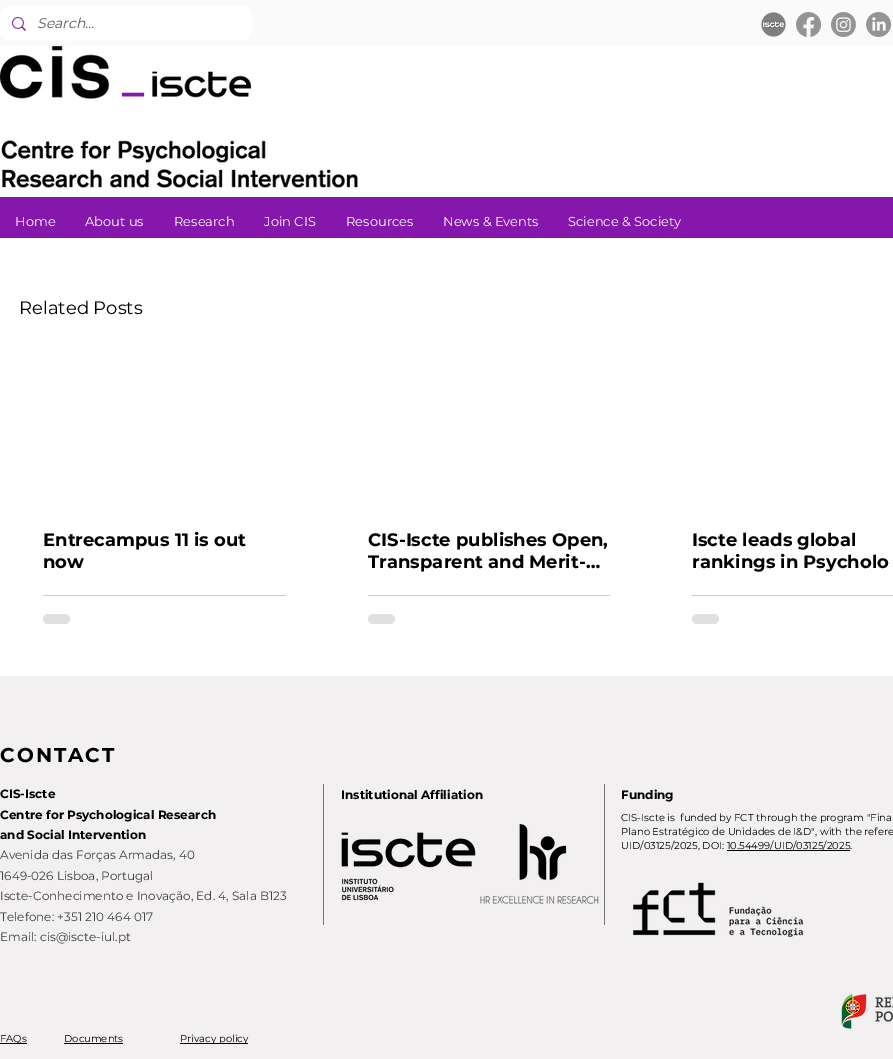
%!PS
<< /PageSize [893 1059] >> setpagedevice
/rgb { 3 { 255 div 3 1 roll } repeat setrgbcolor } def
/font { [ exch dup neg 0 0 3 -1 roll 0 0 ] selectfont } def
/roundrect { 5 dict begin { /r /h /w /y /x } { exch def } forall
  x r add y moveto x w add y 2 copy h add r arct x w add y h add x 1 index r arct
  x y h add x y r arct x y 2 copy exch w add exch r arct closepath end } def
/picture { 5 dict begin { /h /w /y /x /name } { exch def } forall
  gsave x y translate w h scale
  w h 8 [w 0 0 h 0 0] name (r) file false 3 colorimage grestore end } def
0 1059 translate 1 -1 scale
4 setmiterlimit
255 255 255 rgb
0 0 893 1059 rectfill
250 250 250 rgb
0 0 893 46 rectfill
255 255 255 rgb
0 6 252 35 10 roundrect fill
(img/1.rgb) 12 17 14 14 picture
(img/2.rgb) 761 12 25 25 picture
(img/3.rgb) 796 12 25 25 picture
(img/4.rgb) 831 12 25 25 picture
(img/5.rgb) 866 12 25 25 picture
(img/6.rgb) 0 46 358 142 picture
133 23 172 rgb
0 197 893 41 rectfill
204 204 204 rgb
43 595 243 1 rectfill
224 224 224 rgb
43 614 27 10 5 roundrect fill
204 204 204 rgb
368 595 242 1 rectfill
224 224 224 rgb
368 614 27 10 5 roundrect fill
204 204 204 rgb
692 595 201 1 rectfill
224 224 224 rgb
692 614 27 10 5 roundrect fill
[
  [0 676 893 383 242 240 240]
  [323 784 1 141 117 117 117]
  [604 784 1 141 117 117 117]
] { aload pop rgb rectfill } forall
(img/7.rgb) 341 832 135 69 picture
(img/8.rgb) 480 824 119 80 picture
0 0 0 rgb
727 850 123 1 rectfill
(img/9.rgb) 633 882 171 55 picture
(img/10.rgb) 841 994 52 35 picture
[
  [0 1043 27 1 0 0 0]
  [64 1043 59 1 0 0 0]
  [180 1043 68 1 0 0 0]
] { aload pop rgb rectfill } forall
/Montserrat-Italic 14 font
92 92 92 rgb
37 28 moveto (Search...) show
/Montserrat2-Regular 13 font
255 255 255 rgb
[
  [(Home) 15 226]
  [(About us) 85 226]
  [(Research) 174 226]
  [(Join CIS) 264 226]
  [(Resources) 346 226]
  [(News & Events) 443 226]
  [(Science & Society) 568 226]
] { aload pop moveto show } forall
/Montserrat-Regular 18 font
0 0 0 rgb
19 314 moveto (Related Posts) show
/Montserrat-Bold 18 font
[
  [(Entrecampus 11 is out) 43 546]
  [(now) 43 568]
  [(CIS-Iscte publishes Open,) 368 546]
] { aload pop moveto show } forall
gsave
368 529 242 44 rectclip
368 568 moveto (Transparent and Merit-…) show
grestore
692 546 moveto (Iscte leads global) show
692 568 moveto (rankings in Psycholo) show
/Montserrat-Bold 20 font
0 762 moveto 2 0 (CONTACT) ashow
/Montserrat-Bold 12 font
[
  [(CIS-Iscte) 0 798]
  [(Centre for Psychological Research) 0 819]
  [(and Social Intervention) 0 839]
] { aload pop moveto show } forall
/Montserrat-Regular 12 font
65 65 65 rgb
[
  [(Avenida das Forças Armadas, 40) 0 859]
  [(1649-026 Lisboa, Portugal) 0 880]
  [(Iscte-Conhecimento e Inovação, Ed. 4, Sala B123) 0 900]
  [(Telefone: +351 210 464 017) 0 921]
  [(Email: cis@iscte-iul.pt) 0 941]
] { aload pop moveto show } forall
/Montserrat-Bold 12 font
0 0 0 rgb
341 799 moveto (Institutional Affiliation) show
621 799 moveto (Funding) show
/Montserrat-Regular 10 font
[
  [(CIS-Iscte is  funded by FCT through the program "Fina) 621 821]
  [(Plano Estratégico de Unidades de I&D", with the refere) 621 835]
  [(UID/03125/2025, DOI: 10.54499/UID/03125/2025.) 621 849]
  [(FAQs) 0 1042]
  [(Documents) 64 1042]
  [(Privacy policy) 180 1042]
] { aload pop moveto show } forall
showpage
